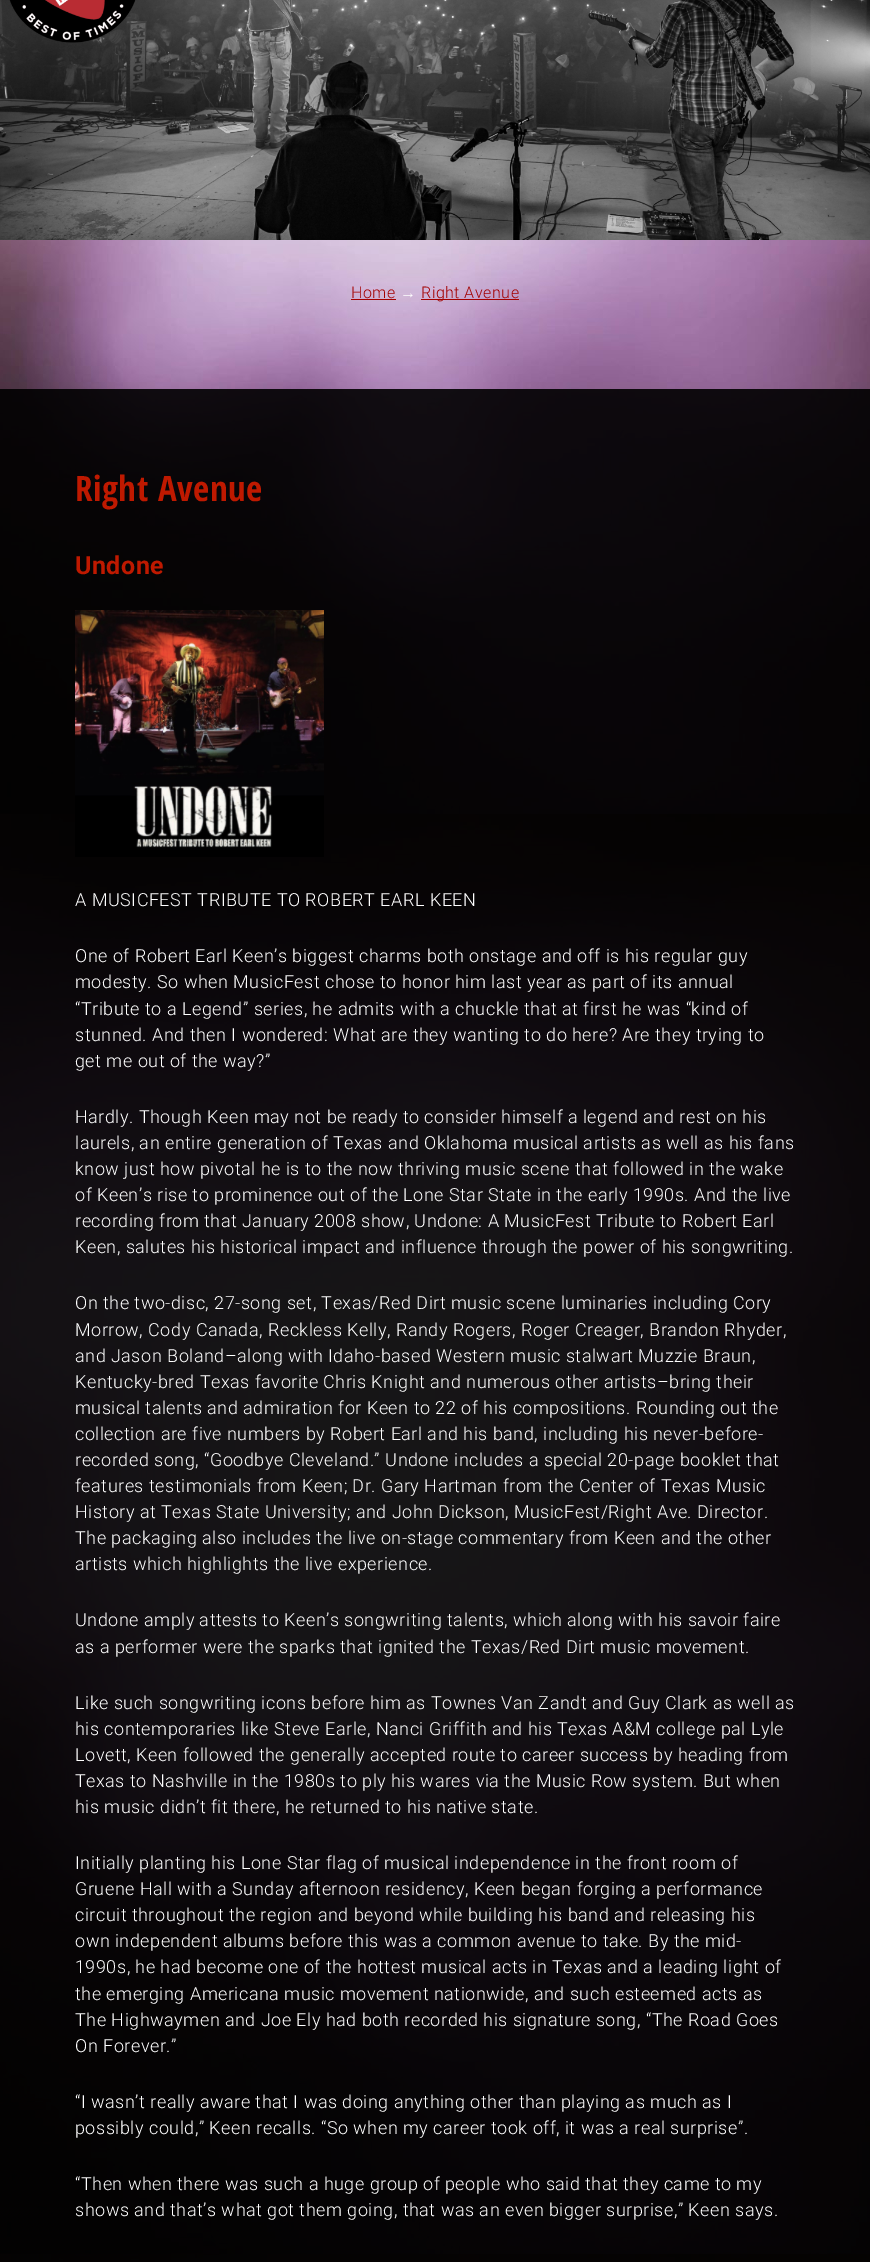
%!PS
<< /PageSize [870 2262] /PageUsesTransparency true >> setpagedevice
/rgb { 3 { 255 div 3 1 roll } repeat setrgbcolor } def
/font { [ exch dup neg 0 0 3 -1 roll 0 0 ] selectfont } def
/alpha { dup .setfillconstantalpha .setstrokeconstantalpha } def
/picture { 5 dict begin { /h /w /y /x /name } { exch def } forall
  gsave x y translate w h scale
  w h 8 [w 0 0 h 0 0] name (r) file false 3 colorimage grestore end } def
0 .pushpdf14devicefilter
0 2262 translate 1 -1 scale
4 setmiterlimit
255 255 255 rgb
0 0 870 2262 rectfill
(img/1.rgb) 0 240 870 2022 picture
(img/2.rgb) 0 0 870 240 picture
[
  [351 299 45 1 163 0 0]
  [421 299 98 1 163 0 0]
] { aload pop rgb rectfill } forall
0.9 alpha
[
  [0 389 870 1873 0 0 0]
] { aload pop rgb rectfill } forall
1 alpha
(img/3.rgb) 75 610 249 247 picture
/Roboto-Light 16 font
163 0 0 rgb
351 298 moveto 0.5 0 (Home) ashow
/LiberationSans-Regular 16 font
255 255 255 rgb
400 298 moveto 0.5 0 (→) ashow
/Roboto-Light 16 font
163 0 0 rgb
421 298 moveto 0.5 0 (Right Avenue) ashow
/OpenSansCondensed-Bold 35 font
191 25 0 rgb
75 501 moveto 0.5 0 (Right Avenue) ashow
/Roboto-Bold 25 font
75 574 moveto 0.5 0 (Undone) ashow
/Roboto-Light 18 font
255 255 255 rgb
75 906 moveto 0.5 0 (A MUSICFEST TRIBUTE TO ROBERT EARL KEEN) ashow
75 962 moveto 0.5 0 (One of Robert Earl Keen’s biggest charms both onstage and off is his regular guy) ashow
75 988 moveto 0.5 0 (modesty. So when MusicFest chose to honor him last year as part of its annual) ashow
75 1015 moveto 0.5 0 (“Tribute to a Legend” series, he admits with a chuckle that at first he was “kind of) ashow
75 1041 moveto 0.5 0 (stunned. And then I wondered: What are they wanting to do here? Are they trying to) ashow
75 1067 moveto 0.5 0 (get me out of the way?”) ashow
75 1123 moveto 0.5 0 (Hardly. Though Keen may not be ready to consider himself a legend and rest on his) ashow
75 1149 moveto 0.5 0 (laurels, an entire generation of Texas and Oklahoma musical artists as well as his fans) ashow
75 1175 moveto 0.5 0 (know just how pivotal he is to the now thriving music scene that followed in the wake) ashow
75 1201 moveto 0.5 0 (of Keen’s rise to prominence out of the Lone Star State in the early 1990s. And the live) ashow
75 1227 moveto 0.5 0 (recording from that January 2008 show, Undone: A MusicFest Tribute to Robert Earl) ashow
75 1253 moveto 0.5 0 (Keen, salutes his historical impact and influence through the power of his songwriting.) ashow
75 1309 moveto 0.5 0 (On the two-disc, 27-song set, Texas/Red Dirt music scene luminaries including Cory) ashow
75 1336 moveto 0.5 0 (Morrow, Cody Canada, Reckless Kelly, Randy Rogers, Roger Creager, Brandon Rhyder,) ashow
75 1362 moveto 0.5 0 (and Jason Boland–along with Idaho-based Western music stalwart Muzzie Braun,) ashow
75 1388 moveto 0.5 0 (Kentucky-bred Texas favorite Chris Knight and numerous other artists–bring their) ashow
75 1414 moveto 0.5 0 (musical talents and admiration for Keen to 22 of his compositions. Rounding out the) ashow
75 1440 moveto 0.5 0 (collection are five numbers by Robert Earl and his band, including his never-before-) ashow
75 1466 moveto 0.5 0 (recorded song, “Goodbye Cleveland.” Undone includes a special 20-page booklet that) ashow
75 1492 moveto 0.5 0 (features testimonials from Keen; Dr. Gary Hartman from the Center of Texas Music) ashow
75 1518 moveto 0.5 0 (History at Texas State University; and John Dickson, MusicFest/Right Ave. Director.) ashow
75 1544 moveto 0.5 0 (The packaging also includes the live on-stage commentary from Keen and the other) ashow
75 1570 moveto 0.5 0 (artists which highlights the live experience.) ashow
75 1626 moveto 0.5 0 (Undone amply attests to Keen’s songwriting talents, which along with his savoir faire) ashow
75 1653 moveto 0.5 0 (as a performer were the sparks that ignited the Texas/Red Dirt music movement.) ashow
75 1709 moveto 0.5 0 (Like such songwriting icons before him as Townes Van Zandt and Guy Clark as well as) ashow
75 1735 moveto 0.5 0 (his contemporaries like Steve Earle, Nanci Griffith and his Texas A&M college pal Lyle) ashow
75 1761 moveto 0.5 0 (Lovett, Keen followed the generally accepted route to career success by heading from) ashow
75 1787 moveto 0.5 0 (Texas to Nashville in the 1980s to ply his wares via the Music Row system. But when) ashow
75 1813 moveto 0.5 0 (his music didn’t fit there, he returned to his native state.) ashow
75 1869 moveto 0.5 0 (Initially planting his Lone Star flag of musical independence in the front room of) ashow
75 1895 moveto 0.5 0 (Gruene Hall with a Sunday afternoon residency, Keen began forging a performance) ashow
75 1921 moveto 0.5 0 (circuit throughout the region and beyond while building his band and releasing his) ashow
75 1947 moveto 0.5 0 (own independent albums before this was a common avenue to take. By the mid-) ashow
75 1973 moveto 0.5 0 (1990s, he had become one of the hottest musical acts in Texas and a leading light of) ashow
75 2000 moveto 0.5 0 (the emerging Americana music movement nationwide, and such esteemed acts as) ashow
75 2026 moveto 0.5 0 (The Highwaymen and Joe Ely had both recorded his signature song, “The Road Goes) ashow
75 2052 moveto 0.5 0 (On Forever.”) ashow
75 2108 moveto 0.5 0 (“I wasn’t really aware that I was doing anything other than playing as much as I) ashow
75 2134 moveto 0.5 0 (possibly could,” Keen recalls. “So when my career took off, it was a real surprise”.) ashow
75 2190 moveto 0.5 0 (“Then when there was such a huge group of people who said that they came to my) ashow
75 2216 moveto 0.5 0 (shows and that’s what got them going, that was an even bigger surprise,” Keen says.) ashow
.poppdf14devicefilter showpage
